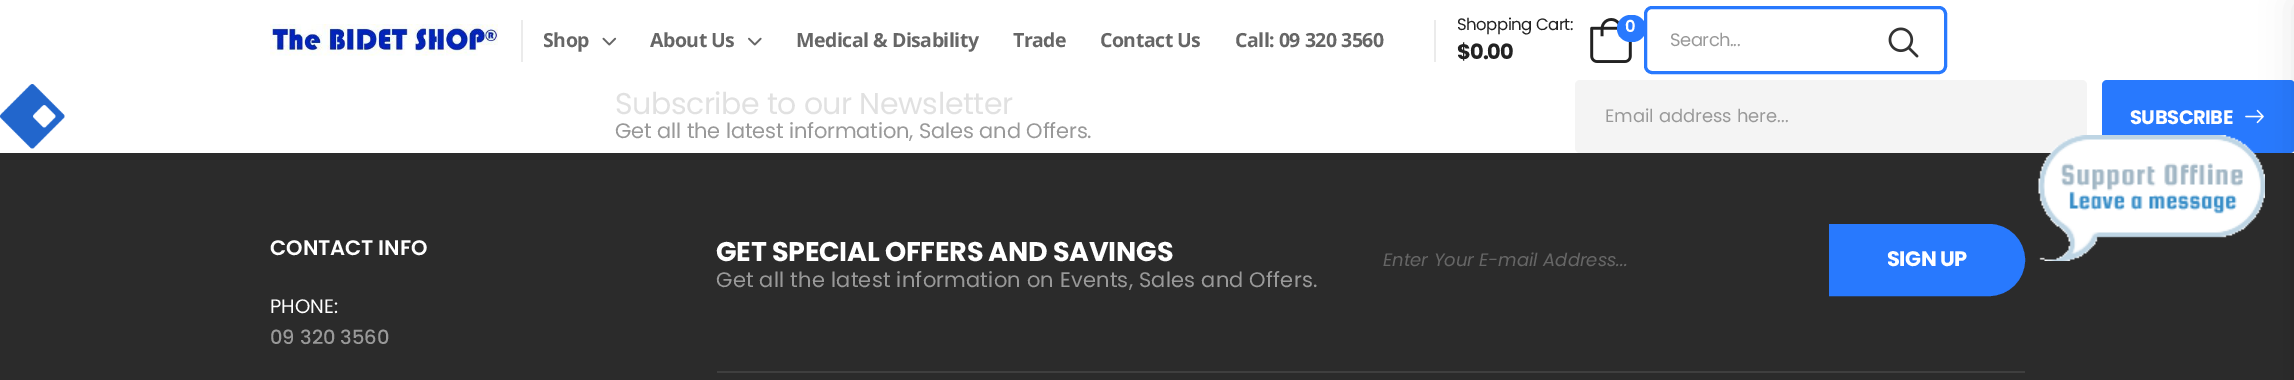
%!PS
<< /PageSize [2294 380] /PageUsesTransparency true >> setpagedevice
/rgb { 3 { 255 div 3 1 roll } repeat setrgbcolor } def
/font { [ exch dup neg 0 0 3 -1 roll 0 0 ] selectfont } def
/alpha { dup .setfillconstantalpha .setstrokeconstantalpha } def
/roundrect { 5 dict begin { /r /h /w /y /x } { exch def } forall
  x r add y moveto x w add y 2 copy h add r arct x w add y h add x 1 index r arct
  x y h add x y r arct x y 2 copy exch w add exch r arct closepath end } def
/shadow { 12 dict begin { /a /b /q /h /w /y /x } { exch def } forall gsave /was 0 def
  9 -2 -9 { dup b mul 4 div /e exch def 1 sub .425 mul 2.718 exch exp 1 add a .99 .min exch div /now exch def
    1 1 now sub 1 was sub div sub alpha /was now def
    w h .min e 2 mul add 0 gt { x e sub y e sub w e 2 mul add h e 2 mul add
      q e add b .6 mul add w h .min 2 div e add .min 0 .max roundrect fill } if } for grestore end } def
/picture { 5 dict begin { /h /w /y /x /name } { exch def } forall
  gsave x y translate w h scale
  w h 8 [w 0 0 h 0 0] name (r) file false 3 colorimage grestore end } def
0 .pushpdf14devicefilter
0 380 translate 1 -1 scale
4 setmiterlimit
255 255 255 rgb
0 0 2294 380 rectfill
(img/1.rgb) 270 24 228 32 picture
235 235 235 rgb
521 20 2 42 rectfill
(img/2.rgb) 602 37 15 9 picture
(img/3.rgb) 748 37 14 9 picture
1434 20 2 42 rectfill
(img/4.rgb) 1590 18 42 45 picture
40 121 254 rgb
3 setlinewidth
1645.5 7.5 300 65 6.5 roundrect stroke
1617 15 29 27 13.5 roundrect fill
2102 80 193 73 5 roundrect fill
(img/7.rgb) 2245 109 19 15 picture
43 43 43 rgb
0 153 2294 227 rectfill
0 0 0 rgb
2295 3 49 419 0 16.5 0.1 shadow
(img/5.rgb) 1888 27 31 31 picture
(img/6.rgb) 0 84 65 65 picture
244 244 244 rgb
1575 80 512 73 5 roundrect fill
63 63 63 rgb
717 371 1308 2 rectfill
40 121 254 rgb
1830.5 225.5 moveto 1989 225.5 lineto 2008 225.5 2023.5 241 2023.5 260 curveto 2023.5 279 2008 294.5 1989 294.5 curveto 1830.5 294.5 lineto closepath gsave fill grestore
stroke
(img/8.rgb) 2038 135 227 126 picture
/OpenSans-Bold 19.5 font
102 102 102 rgb
543 47 moveto -0.5 0 (Shop) ashow
650 47 moveto -0.5 0 (About Us) ashow
796 47 moveto -0.5 0 (Medical & Disability) ashow
1013 47 moveto -0.5 0 (Trade) ashow
1100 47 moveto -0.5 0 (Contact Us) ashow
1235 47 moveto -0.5 0 (Call: 09 320 3560) ashow
/Poppins-Regular 16.5 font
34 34 34 rgb
1457 30 moveto -0.5 0 (Shopping Cart:) ashow
/Poppins-Bold 21 font
1457 59 moveto -1 0 ($0.00) ashow
/Poppins-SemiBold 16.5 font
255 255 255 rgb
1625 32 moveto -0.5 0 (0) ashow
/Poppins-Regular 18 font
153 153 153 rgb
1670 46 moveto -0.5 0 (Search...) ashow
/Poppins-Regular 30 font
225 225 225 rgb
615 114 moveto -0.45 0 (Subscribe to our Newsletter) ashow
/Poppins-Regular 21 font
153 153 153 rgb
615 138 moveto -0.15 0 (Get all the latest information, Sales and Offers.) ashow
/Poppins-Regular 18 font
1605 122 moveto (Email address here...) show
/Poppins-Bold 19.5 font
255 255 255 rgb
2130 124 moveto -0.5 0 (SUBSCRIBE) ashow
/Poppins-SemiBold 21 font
270 255 moveto (CONTACT INFO) show
/Poppins-Regular 19.5 font
270 313 moveto (PHONE:) show
/Poppins-Medium 19.5 font
153 153 153 rgb
270 344 moveto (09 320 3560) show
/Poppins-Bold 27 font
255 255 255 rgb
716 261 moveto -0.25 0 (GET SPECIAL OFFERS AND SAVINGS) ashow
/Poppins-Regular 21 font
153 153 153 rgb
716 287 moveto 0.2 0 (Get all the latest information on Events, Sales and Offers.) ashow
/Poppins-Italic 18 font
102 102 102 rgb
1383 266 moveto (Enter Your E-mail Address...) show
/Poppins-Bold 21 font
255 255 255 rgb
1887 266 moveto -0.5 0 (SIGN UP) ashow
.poppdf14devicefilter showpage
